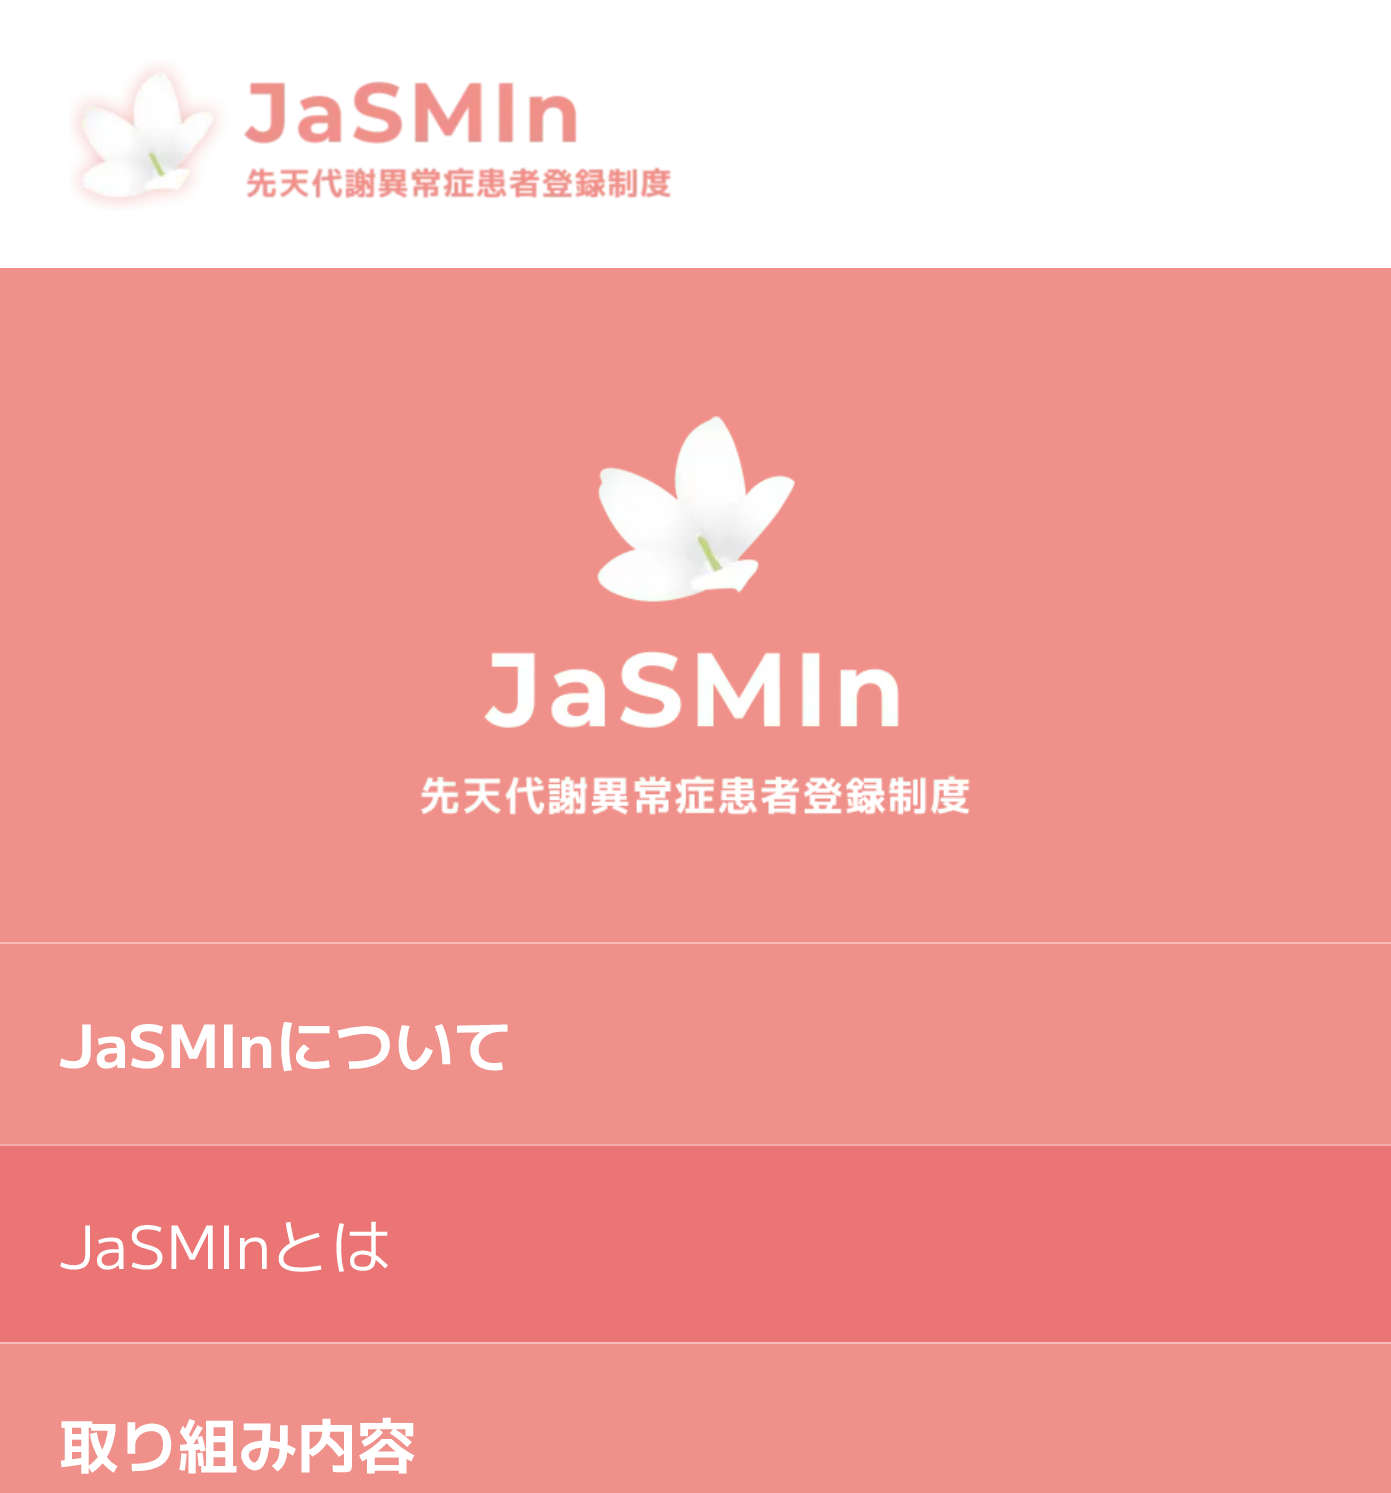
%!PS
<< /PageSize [1391 1493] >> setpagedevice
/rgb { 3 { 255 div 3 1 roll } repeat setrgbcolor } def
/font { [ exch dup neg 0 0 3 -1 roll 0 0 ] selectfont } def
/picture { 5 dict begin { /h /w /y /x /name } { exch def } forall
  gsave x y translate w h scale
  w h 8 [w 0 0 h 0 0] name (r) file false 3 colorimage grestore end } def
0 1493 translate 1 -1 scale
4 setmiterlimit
255 255 255 rgb
0 0 1391 1493 rectfill
(img/1.rgb) 69 60 603 151 picture
240 144 138 rgb
0 268 1391 1225 rectfill
(img/2.rgb) 420 416 550 399 picture
[
  [0 942 1391 2 246 188 185]
  [0 1146 1391 196 235 117 117]
  [0 1144 1391 2 243 172 172]
  [0 1342 1391 2 246 188 185]
] { aload pop rgb rectfill } forall
/MPLUS1-Bold 59.5 font
255 255 255 rgb
59 1068 moveto (JaSMInについて) show
/MPLUS1-Regular 59.5 font
59 1269 moveto (JaSMInとは) show
/MPLUS1-Bold 59.5 font
59 1468 moveto (取り組み内容) show
showpage
